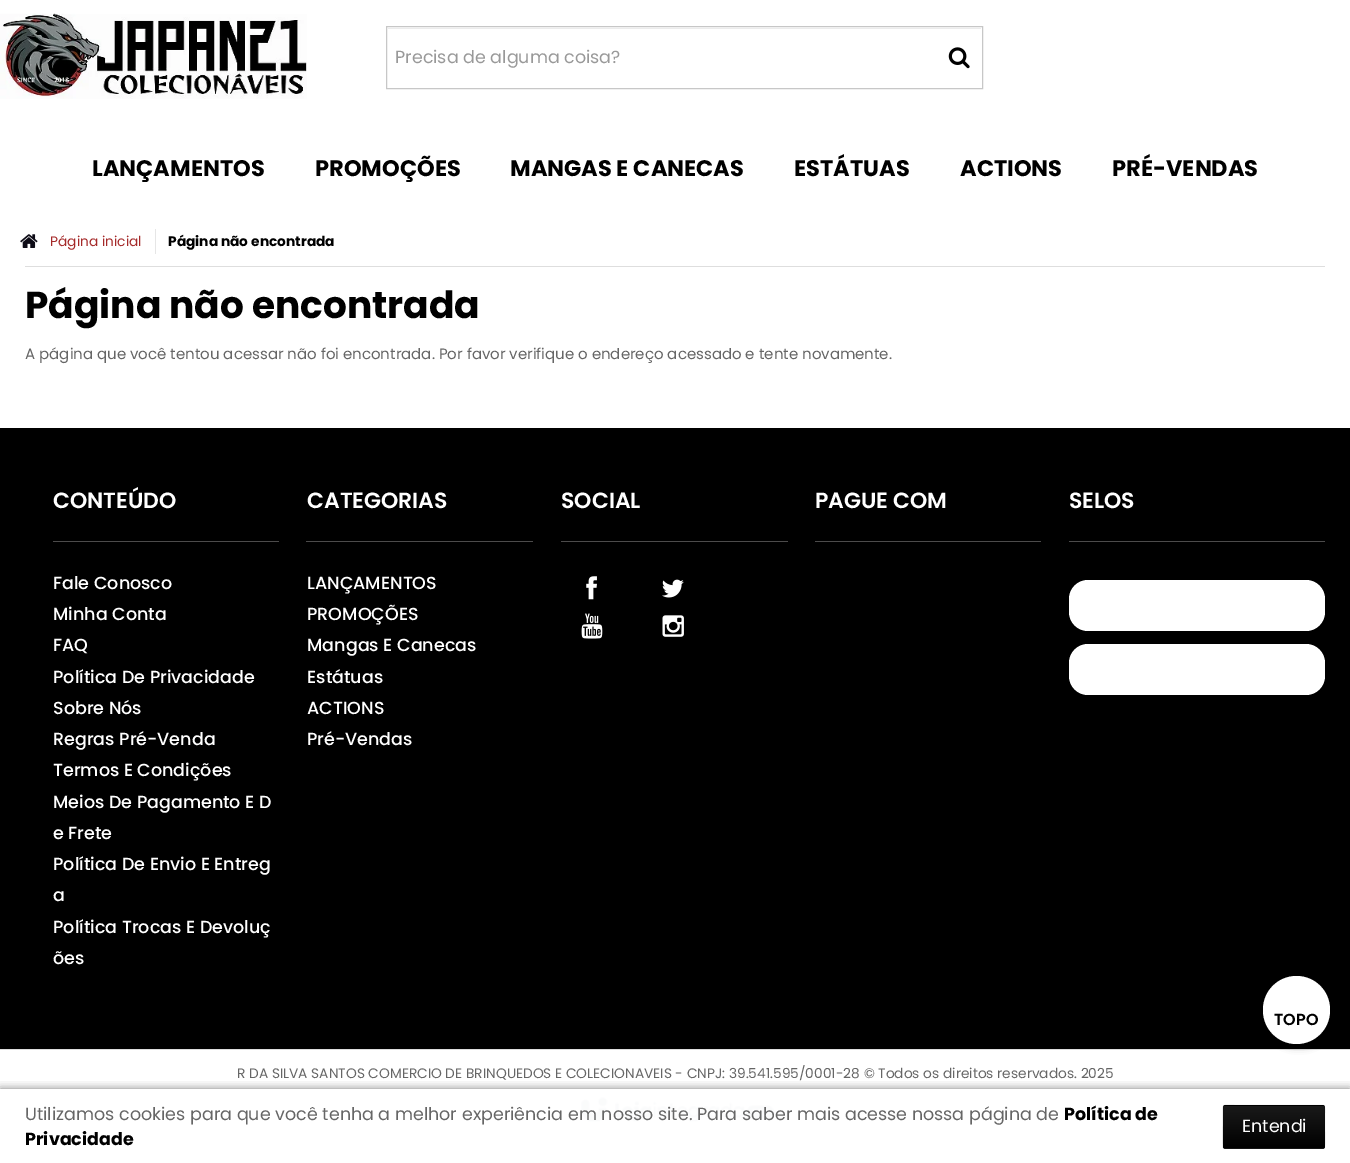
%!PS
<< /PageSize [1350 1163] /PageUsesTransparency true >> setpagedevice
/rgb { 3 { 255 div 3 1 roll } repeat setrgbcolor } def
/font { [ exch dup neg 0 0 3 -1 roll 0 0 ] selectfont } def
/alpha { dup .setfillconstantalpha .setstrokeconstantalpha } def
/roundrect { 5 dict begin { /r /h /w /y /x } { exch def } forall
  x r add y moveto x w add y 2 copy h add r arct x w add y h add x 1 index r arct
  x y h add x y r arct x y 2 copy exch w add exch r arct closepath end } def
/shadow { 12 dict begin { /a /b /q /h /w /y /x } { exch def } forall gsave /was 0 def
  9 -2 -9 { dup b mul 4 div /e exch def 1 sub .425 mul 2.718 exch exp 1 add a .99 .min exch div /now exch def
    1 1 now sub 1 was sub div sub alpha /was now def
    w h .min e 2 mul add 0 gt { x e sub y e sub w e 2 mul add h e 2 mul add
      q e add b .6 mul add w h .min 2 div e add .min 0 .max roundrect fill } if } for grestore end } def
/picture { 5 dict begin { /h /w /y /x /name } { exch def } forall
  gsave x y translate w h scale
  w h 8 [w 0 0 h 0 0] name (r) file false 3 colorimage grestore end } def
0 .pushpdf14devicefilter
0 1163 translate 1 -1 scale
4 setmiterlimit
255 255 255 rgb
0 0 1350 1163 rectfill
(img/1.rgb) 0 13 307 86 picture
236 236 236 rgb
388 28 593 1 rectfill
199 199 199 rgb
386.5 26.5 596 62 rectstroke
(img/2.rgb) 948 47 22 22 picture
222 222 222 rgb
25 266 1300 1 rectfill
(img/3.rgb) 20 234 18 14 picture
[
  [155 229 1 25 230 230 230]
  [0 428 1350 621 0 0 0]
  [53 541 226 1 76 75 75]
  [306 541 227 1 76 75 75]
  [561 541 227 1 76 75 75]
] { aload pop rgb rectfill } forall
(img/4.rgb) 586 576 11 24 picture
(img/5.rgb) 662 579 22 19 picture
(img/6.rgb) 581 613 22 26 picture
(img/7.rgb) 662 615 22 22 picture
815 541 226 1 rectfill
1069 541 256 1 rectfill
255 255 255 rgb
1069 580 256 51 19 roundrect fill
1069 644 256 51 19 roundrect fill
221 221 221 rgb
0 1049 1350 1 rectfill
(img/8.rgb) 581 1097 193 25 picture
0 0 0 rgb
1265 979 68 67 33.5 4 0.4 shadow
255 255 255 rgb
1263 976 67 68 33.5 roundrect fill
gsave
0 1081 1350 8 rectclip
0 0 0 rgb
0 1089 1350 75 0 4.5 0.5 shadow
grestore
0 0 0 rgb
1223 1105 102 44 2.5 roundrect fill
0.1 alpha
gsave 1223 1105 moveto 1325 1105 lineto 1325 1106 lineto 1223 1106 lineto closepath clip newpath
<< /ShadingType 2 /ColorSpace /DeviceRGB /Coords [1274 1065 1274 1106] /Extend [true true] /Function << /FunctionType 2 /Domain [0 1] /C0 [1 1 1] /C1 [0 0 0] /N 1 >> >> shfill grestore
gsave 1223 1106 moveto 1325 1106 lineto 1325 1148 lineto 1223 1148 lineto closepath clip newpath
<< /ShadingType 2 /ColorSpace /DeviceRGB /Coords [1274 1106 1274 1148] /Extend [true true] /Function << /FunctionType 2 /Domain [0 1] /C0 [1 1 1] /C1 [0 0 0] /N 1 >> >> shfill grestore
gsave 1223 1148 moveto 1325 1148 lineto 1325 1149 lineto 1223 1149 lineto closepath clip newpath
<< /ShadingType 2 /ColorSpace /DeviceRGB /Coords [1274 1148 1274 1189] /Extend [true true] /Function << /FunctionType 2 /Domain [0 1] /C0 [1 1 1] /C1 [0 0 0] /N 1 >> >> shfill grestore
0.2 alpha
1.2 setlinewidth
1324 1147.5 moveto 1322.5 1148 lineto 1225 1148 lineto 1223.5 1147.5 lineto stroke
0.1 alpha
1223.5 1147.5 moveto 1222 1146 1223 1124 1223 1120.5 curveto 1223 1101 1220 1105.5 1241 1105.5 curveto 1322.5 1105.5 lineto 1326 1105.5 1324.5 1114 1324.5 1114 curveto 1324.5 1127 lineto 1324.5 1130 1325.5 1146 1324 1147.5 curveto stroke
/Poppins-Regular 17.5 font
1 alpha
153 153 153 rgb
395 63 moveto (Precisa de alguma coisa?) show
/Poppins-Bold 22.5 font
0 0 0 rgb
[
  [(LANÇAMENTOS) 92 176]
  [(PROMOÇÕES) 315 176]
  [(MANGAS E CANECAS) 510 176]
  [(ESTÁTUAS) 794 176]
  [(ACTIONS) 960 176]
  [(PRÉ-VENDAS) 1112 176]
] { aload pop moveto show } forall
/Poppins-Regular 13.75 font
165 42 42 rgb
50 246 moveto (Página inicial) show
/Poppins-Bold 13.75 font
0 0 0 rgb
168 246 moveto (Página não encontrada) show
/Poppins-Bold 37.5 font
25 318 moveto (Página não encontrada) show
/Poppins-Regular 15 font
102 102 102 rgb
25 359 moveto (A página que você tentou acessar não foi encontrada. Por favor verifique o endereço acessado e tente novamente.) show
/Poppins-SemiBold 22 font
255 255 255 rgb
53 508 moveto (CONTEÚDO) show
/Poppins-Medium 17.5 font
[
  [(Fale Conosco) 53 589]
  [(Minha Conta) 53 620]
  [(FAQ) 53 651]
  [(Política De Privacidade) 53 683]
  [(Sobre Nós) 53 714]
  [(Regras Pré-Venda) 53 745]
  [(Termos E Condições) 53 776]
  [(Meios De Pagamento E D) 53 808]
  [(e Frete) 53 839]
  [(Política De Envio E Entreg) 53 870]
  [(a) 53 901]
  [(Política Trocas E Devoluç) 53 933]
  [(ões) 53 964]
] { aload pop moveto show } forall
/Poppins-SemiBold 22 font
307 508 moveto (CATEGORIAS) show
/Poppins-Medium 17.5 font
[
  [(LANÇAMENTOS) 307 589]
  [(PROMOÇÕES) 307 620]
  [(Mangas E Canecas) 307 651]
  [(Estátuas) 307 683]
  [(ACTIONS) 307 714]
  [(Pré-Vendas) 307 745]
] { aload pop moveto show } forall
/Poppins-SemiBold 22 font
[
  [(SOCIAL) 561 508]
  [(PAGUE COM) 815 508]
  [(SELOS) 1069 508]
] { aload pop moveto show } forall
/Poppins-Regular 13.75 font
102 102 102 rgb
237 1078 moveto (R DA SILVA SANTOS COMERCIO DE BRINQUEDOS E COLECIONAVEIS - CNPJ: 39.541.595/0001-28 © Todos os direitos reservados. 2025) show
/Poppins-SemiBold 16 font
0 0 0 rgb
1274 1025 moveto (TOPO) show
/Poppins-Regular 17.5 font
102 102 102 rgb
25 1120 moveto (Utilizamos cookies para que você tenha a melhor experiência em nosso site. Para saber mais acesse nossa página de) show
/Poppins-Bold 17.5 font
0 0 0 rgb
1064 1120 moveto (Política de) show
25 1145 moveto (Privacidade) show
/Poppins-Regular 17.5 font
255 255 255 rgb
1242 1132 moveto (Entendi) show
.poppdf14devicefilter showpage
